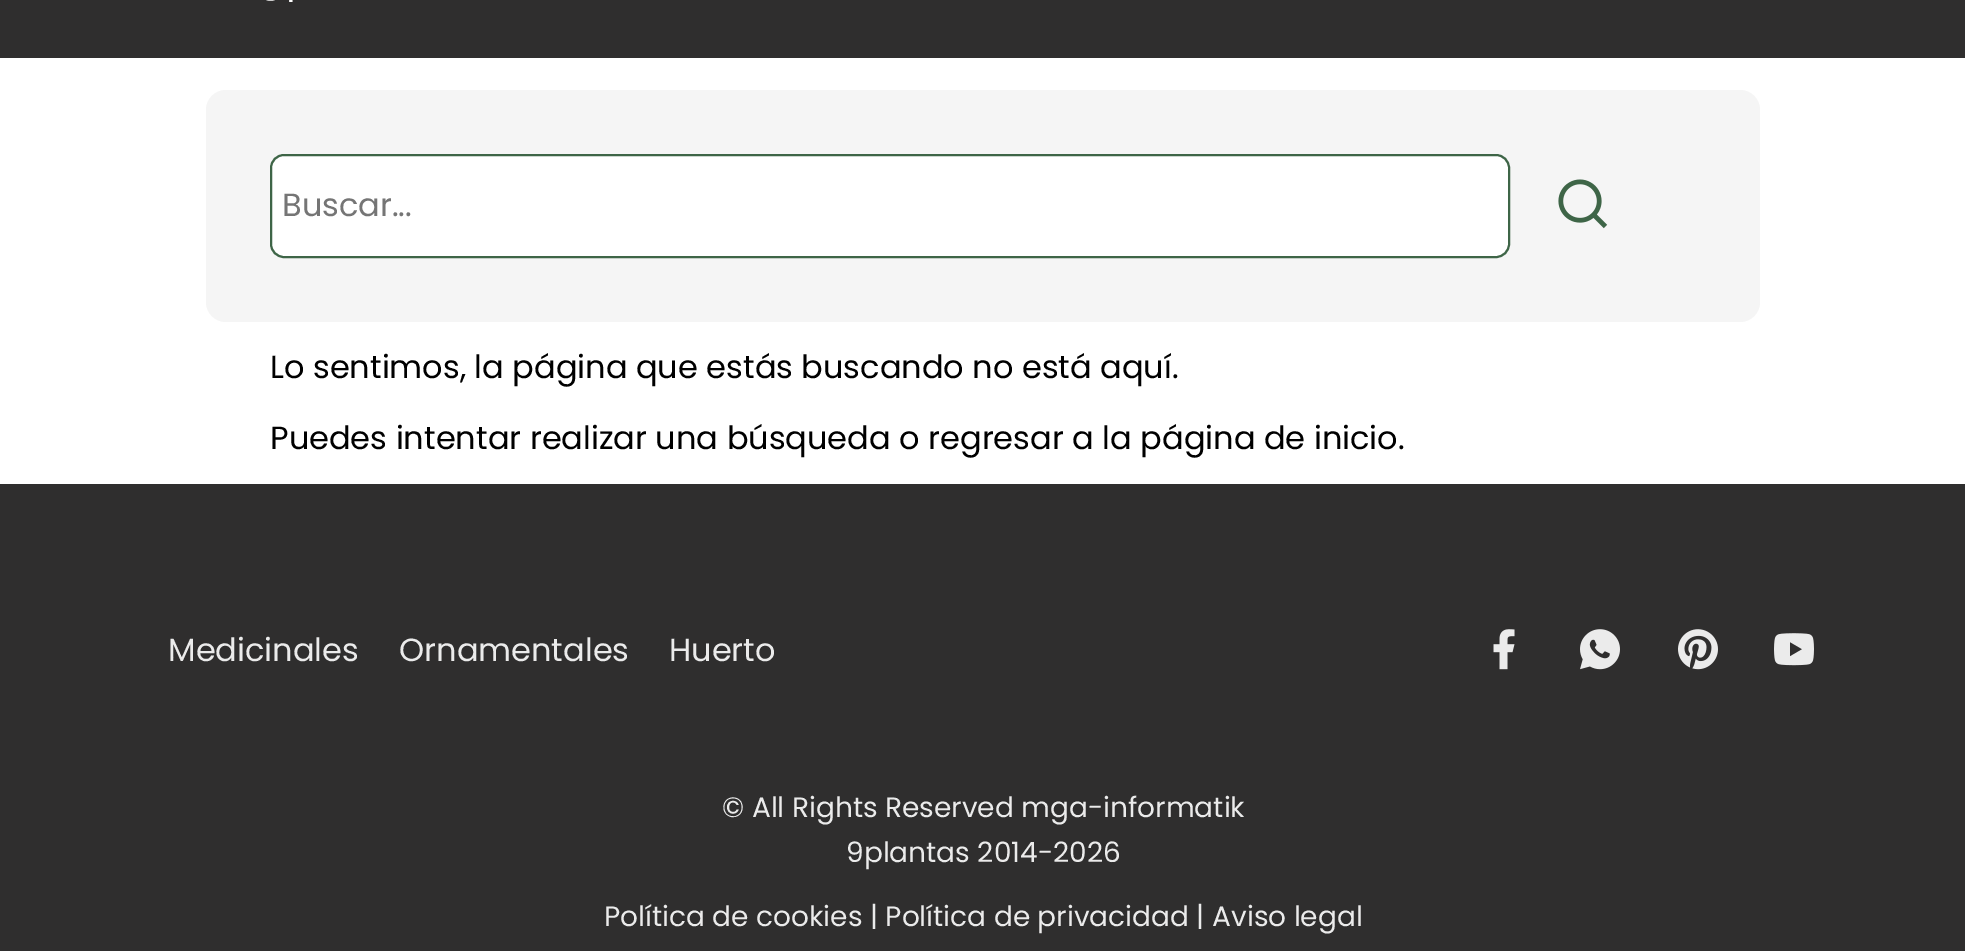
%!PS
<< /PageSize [1965 951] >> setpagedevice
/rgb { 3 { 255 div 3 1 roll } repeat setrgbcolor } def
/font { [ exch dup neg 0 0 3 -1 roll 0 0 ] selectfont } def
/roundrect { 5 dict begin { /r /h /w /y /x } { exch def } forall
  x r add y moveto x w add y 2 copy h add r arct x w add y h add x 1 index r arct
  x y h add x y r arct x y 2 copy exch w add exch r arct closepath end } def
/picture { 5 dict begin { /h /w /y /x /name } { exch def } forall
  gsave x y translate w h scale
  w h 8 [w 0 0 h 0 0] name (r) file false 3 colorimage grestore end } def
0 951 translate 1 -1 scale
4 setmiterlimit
255 255 255 rgb
0 0 1965 951 rectfill
47 46 46 rgb
0 0 1965 58 rectfill
(img/1.rgb) 266 0 27 2 picture
245 245 245 rgb
206 90 1554 232 20 roundrect fill
255 255 255 rgb
271 155 1238 102 13 roundrect gsave fill grestore
62 101 71 rgb
2 setlinewidth
stroke
(img/2.rgb) 1558 179 50 50 picture
47 46 46 rgb
0 484 1965 467 rectfill
(img/3.rgb) 1493 629 22 41 picture
(img/4.rgb) 1580 629 40 41 picture
(img/5.rgb) 1678 629 40 41 picture
(img/6.rgb) 1774 633 40 33 picture
/Poppins-Regular 32 font
117 117 117 rgb
282 216 moveto (Buscar...) show
0 0 0 rgb
270 378 moveto (Lo sentimos, la página que estás buscando no está aquí.) show
270 449 moveto (Puedes intentar realizar una búsqueda o regresar a la página de inicio.) show
235 235 235 rgb
[
  [(Medicinales) 168 661]
  [(Ornamentales) 399 661]
  [(Huerto) 669 661]
] { aload pop moveto show } forall
/Poppins-Regular 28 font
[
  [(© All Rights Reserved mga-informatik) 722 817]
  [(9plantas 2014-2026) 846 862]
  [(Política de cookies | Política de privacidad | Aviso legal) 604 926]
] { aload pop moveto show } forall
showpage
